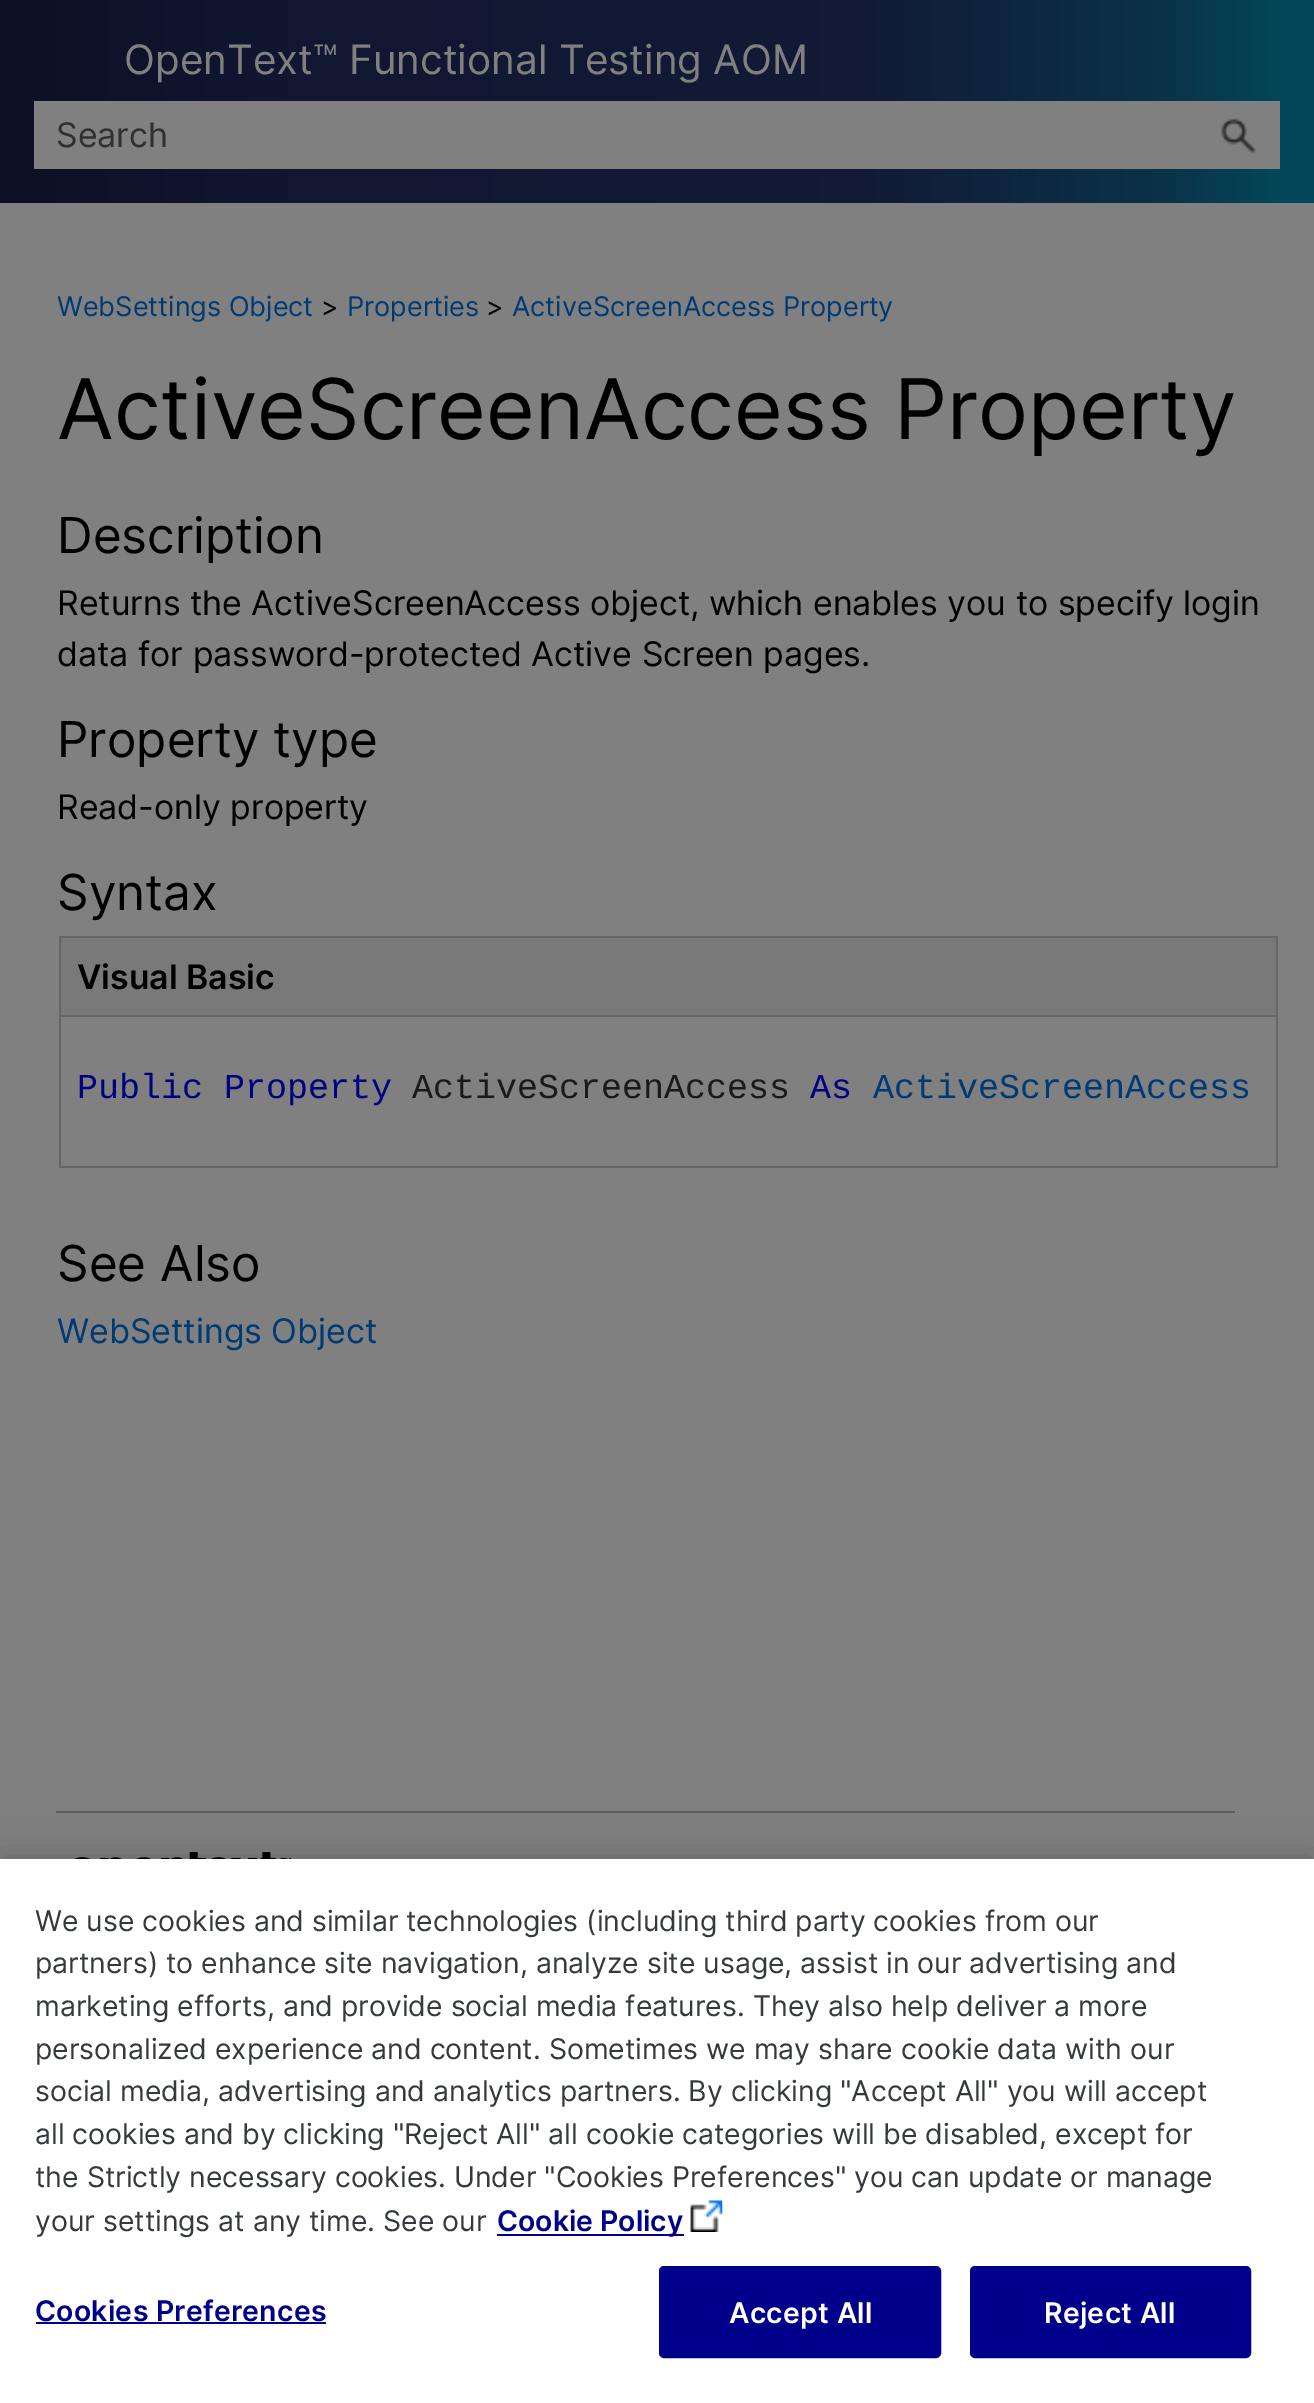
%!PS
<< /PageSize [1314 2403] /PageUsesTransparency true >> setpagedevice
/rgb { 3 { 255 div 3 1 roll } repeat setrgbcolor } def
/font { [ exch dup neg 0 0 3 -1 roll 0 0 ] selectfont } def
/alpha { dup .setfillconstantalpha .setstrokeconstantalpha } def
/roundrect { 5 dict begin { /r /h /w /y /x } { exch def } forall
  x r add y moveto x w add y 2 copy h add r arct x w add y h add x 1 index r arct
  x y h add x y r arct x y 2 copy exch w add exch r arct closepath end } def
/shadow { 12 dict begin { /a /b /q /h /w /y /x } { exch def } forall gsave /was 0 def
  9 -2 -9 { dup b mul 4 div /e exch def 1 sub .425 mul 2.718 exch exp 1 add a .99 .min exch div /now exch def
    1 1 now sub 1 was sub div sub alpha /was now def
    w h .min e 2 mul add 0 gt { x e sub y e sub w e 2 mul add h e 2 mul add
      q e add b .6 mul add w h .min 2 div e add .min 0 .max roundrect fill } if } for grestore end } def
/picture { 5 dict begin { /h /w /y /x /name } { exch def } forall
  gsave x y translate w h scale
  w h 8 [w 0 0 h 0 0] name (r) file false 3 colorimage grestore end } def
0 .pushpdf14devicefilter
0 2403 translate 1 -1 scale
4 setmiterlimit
128 128 128 rgb
0 0 1314 2403 rectfill
gsave 0 0 moveto 1314 0 lineto 1314 203 lineto 0 203 lineto closepath clip newpath
<< /ShadingType 2 /ColorSpace /DeviceRGB /Coords [0 101 1314 101] /Extend [true true] /Function << /FunctionType 3 /Domain [0 1] /Functions [<< /FunctionType 2 /Domain [0 1] /C0 [0.051 0.067 0.145] /C1 [0.067 0.09 0.192] /N 1 >> << /FunctionType 2 /Domain [0 1] /C0 [0.067 0.09 0.192] /C1 [0.071 0.102 0.208] /N 1 >> << /FunctionType 2 /Domain [0 1] /C0 [0.071 0.102 0.208] /C1 [0.039 0.2 0.29] /N 1 >> << /FunctionType 2 /Domain [0 1] /C0 [0.039 0.2 0.29] /C1 [0.016 0.275 0.349] /N 1 >> << /FunctionType 2 /Domain [0 1] /C0 [0.016 0.275 0.349] /C1 [0.016 0.275 0.349] /N 1 >>] /Bounds [0.22 0.65 0.89 0.97] /Encode [0 1 0 1 0 1 0 1 0 1] >> >> shfill grestore
34 101 1246 68 rectfill
(img/1.rgb) 1221 118 35 36 picture
[
  [59 936 1219 2 102 102 102]
  [1276 936 2 232 102 102 102]
  [59 1166 1219 2 102 102 102]
  [59 936 2 232 102 102 102]
  [61 938 1215 77 121 121 121]
  [59 1015 1219 2 102 102 102]
  [56 1811 1179 2 93 92 94]
] { aload pop rgb rectfill } forall
(img/2.rgb) 74 1852 217 7 picture
0 0 0 rgb
0 1859 1314 544 0 20 0.2 shadow
255 255 255 rgb
0 1859 1314 544 rectfill
0 0 139 rgb
497 2234 187 2 rectfill
(img/3.rgb) 690 2200 33 32 picture
36 2322 290 2 rectfill
660 2267 280 90 4 roundrect gsave fill grestore
2 setlinewidth
stroke
971 2267 279 90 4 roundrect gsave fill grestore
stroke
/Inter-Regular 40.5 font
128 128 128 rgb
124 74 moveto (OpenText™ Functional Testing AOM) show
/Inter-Regular 33.85 font
48 48 48 rgb
56 147 moveto (Search) show
/Inter-Regular 27.1 font
0 58 116 rgb
57 316 moveto (WebSettings Object) show
0 0 0 rgb
321 316 moveto (>) show
0 58 116 rgb
347 316 moveto (Properties) show
0 0 0 rgb
486 316 moveto (>) show
0 58 116 rgb
512 316 moveto (ActiveScreenAccess Property) show
/Inter-Regular 83.75 font
0 0 0 rgb
57 439 moveto (ActiveScreenAccess Property) show
/Inter-Regular 49.5 font
57 553 moveto (Description) show
/Inter-Regular 33.85 font
57 615 moveto (Returns the ActiveScreenAccess object, which enables you to specify login) show
57 666 moveto (data for password-protected Active Screen pages.) show
/Inter-Regular 49.5 font
57 757 moveto (Property type) show
/Inter-Regular 33.85 font
57 819 moveto (Read-only property) show
/Inter-Regular 49.5 font
57 910 moveto (Syntax) show
/Inter-SemiBold 33.85 font
77 989 moveto (Visual Basic) show
/LiberationMono-Regular 35 font
0 0 128 rgb
77 1098 moveto (Public Property) show
26 26 26 rgb
412 1098 moveto (ActiveScreenAccess) show
0 0 128 rgb
810 1098 moveto (As) show
0 58 116 rgb
873 1098 moveto (ActiveScreenAccess) show
/Inter-Regular 49.5 font
0 0 0 rgb
57 1281 moveto (See Also) show
/Inter-Regular 33.85 font
0 58 116 rgb
57 1343 moveto (WebSettings Object) show
/Inter-Regular 28.4 font
53 57 61 rgb
[
  [(We use cookies and similar technologies \(including third party cookies from our) 35 1931]
  [(partners\) to enhance site navigation, analyze site usage, assist in our advertising and) 35 1973]
  [(marketing efforts, and provide social media features. They also help deliver a more) 35 2016]
  [(personalized experience and content. Sometimes we may share cookie data with our) 35 2059]
  [(social media, advertising and analytics partners. By clicking "Accept All" you will accept) 35 2101]
  [(all cookies and by clicking "Reject All" all cookie categories will be disabled, except for) 35 2144]
] { aload pop moveto show } forall
gsave
36 1901 1177 345 rectclip
35 2187 moveto (the Strictly necessary cookies. Under "Cookies Preferences" you can update or manage) show
grestore
35 2231 moveto (your settings at any time. See our) show
/Inter-SemiBold 28.4 font
0 0 139 rgb
497 2231 moveto (Cookie Policy) show
35 2321 moveto 0.25 0 (Cookies Preferences) ashow
255 255 255 rgb
729 2323 moveto 0.25 0 (Accept All) ashow
1044 2323 moveto 0.25 0 (Reject All) ashow
.poppdf14devicefilter showpage
